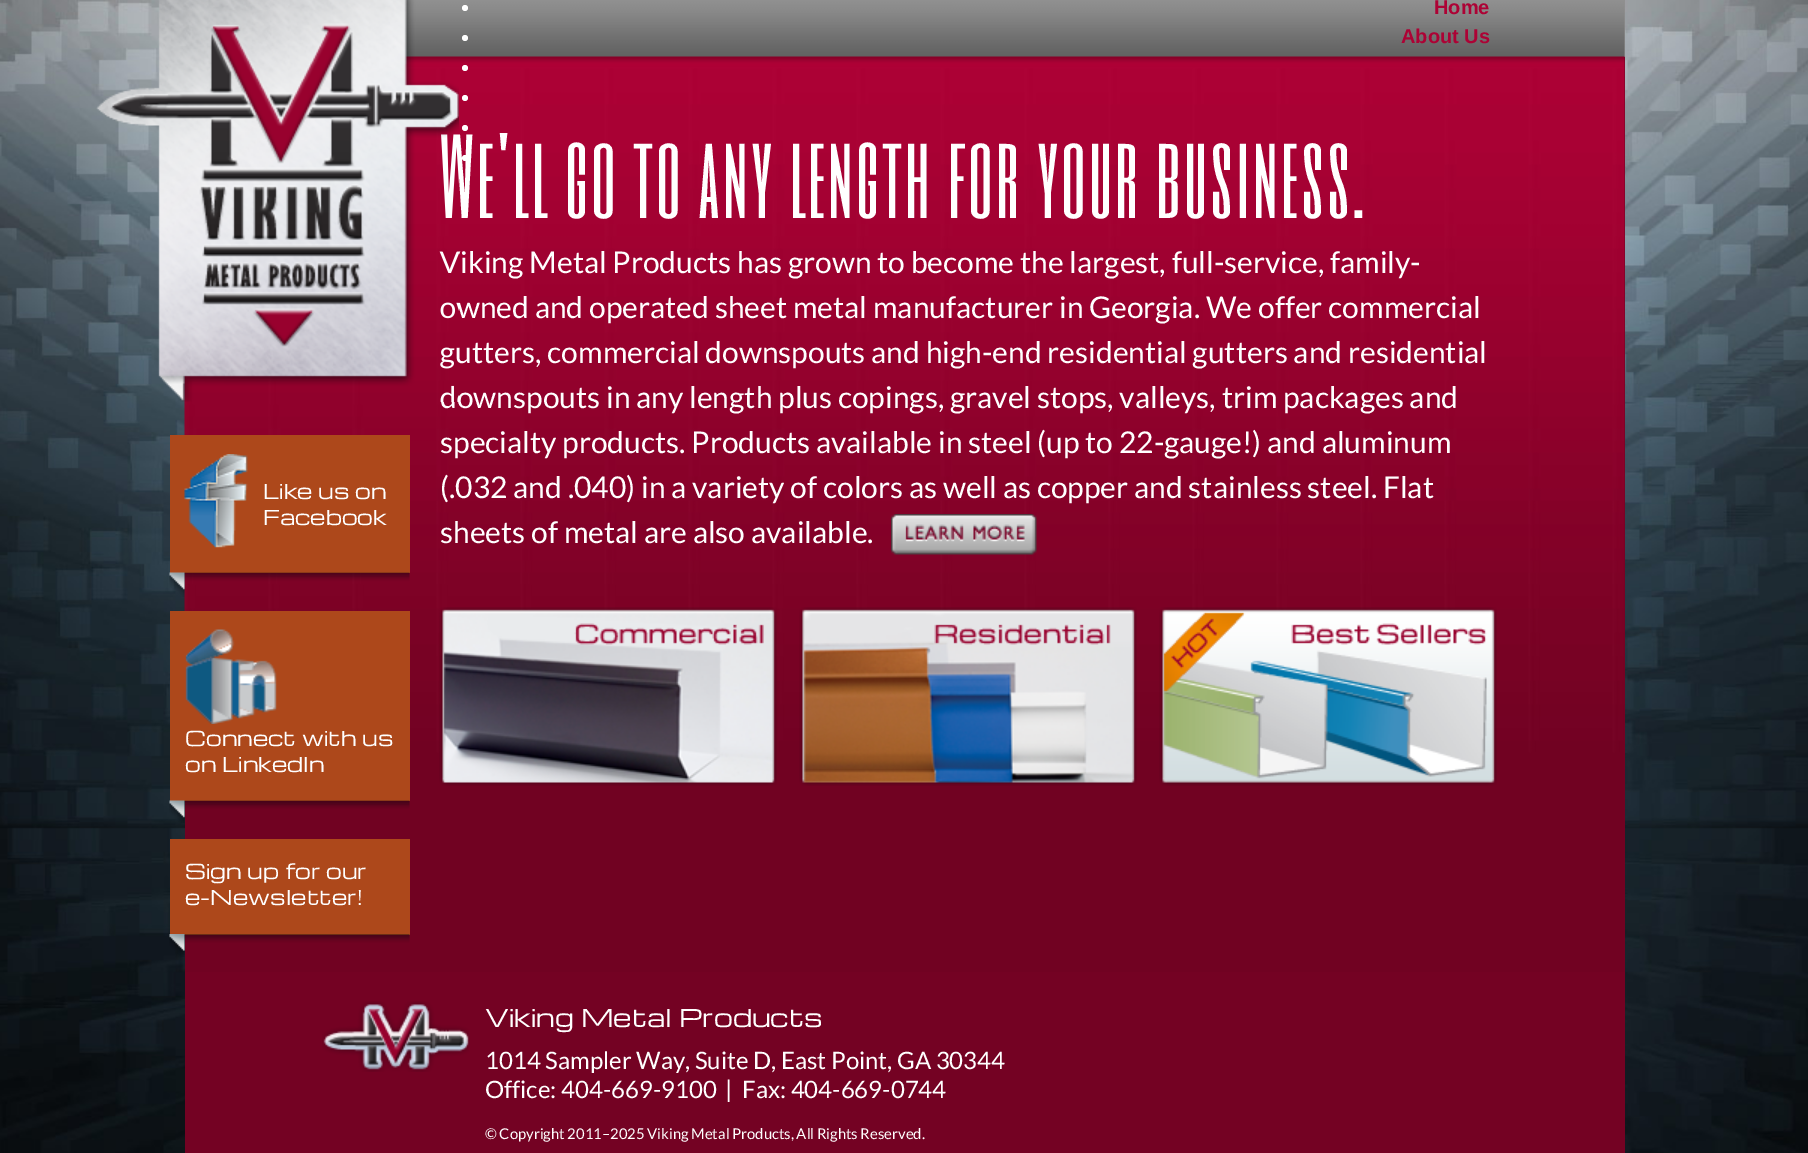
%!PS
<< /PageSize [1808 1153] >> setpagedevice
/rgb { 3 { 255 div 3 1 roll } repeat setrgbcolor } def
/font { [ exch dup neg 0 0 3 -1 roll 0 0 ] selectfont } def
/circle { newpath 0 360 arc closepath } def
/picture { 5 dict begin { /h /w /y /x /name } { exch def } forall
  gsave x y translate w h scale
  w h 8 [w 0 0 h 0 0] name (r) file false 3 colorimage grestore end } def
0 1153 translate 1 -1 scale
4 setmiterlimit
255 255 255 rgb
0 0 1808 1153 rectfill
(img/1.rgb) 0 0 1808 1153 picture
145 145 145 rgb
1624 0 1 57 rectfill
(img/3.rgb) 404 0 1221 57 picture
255 255 255 rgb
465 8 3 circle fill
465 38 3 circle fill
113 2 34 rgb
185 57 1440 915 rectfill
(img/4.rgb) 184 56 1441 713 picture
255 255 255 rgb
465 68 3 circle fill
465 98 3 circle fill
465 128 3 circle fill
465 158 3 circle fill
(img/5.rgb) 891 514 146 41 picture
173 72 27 rgb
170 435 240 138 rectfill
(img/6.rgb) 184 454 64 94 picture
(img/7.rgb) 169 572 241 25 picture
170 611 240 190 rectfill
(img/8.rgb) 185 629 92 95 picture
(img/9.rgb) 169 800 241 23 picture
170 839 240 96 rectfill
(img/10.rgb) 169 934 241 23 picture
(img/11.rgb) 439 607 338 179 picture
(img/12.rgb) 799 607 338 179 picture
(img/13.rgb) 1159 607 338 179 picture
116 2 35 rgb
185 972 1440 181 rectfill
(img/14.rgb) 322 1001 148 71 picture
/LiberationSans-Bold 20 font
173 2 53 rgb
1434 14 moveto (Home) show
1401 43 moveto (About Us) show
/SixCaps-Regular 99 font
255 255 255 rgb
440 218 moveto 3 0 (We'll go to any length for your business.) ashow
/Lato-Regular 30 font
[
  [(Viking Metal Products has grown to become the largest, full-service, family-) 440 273]
  [(owned and operated sheet metal manufacturer in Georgia. We offer commercial) 440 318]
  [(gutters, commercial downspouts and high-end residential gutters and residential) 440 363]
  [(downspouts in any length plus copings, gravel stops, valleys, trim packages and) 440 408]
] { aload pop moveto show } forall
(img/2.rgb) 96 0 363 402 picture
[
  [(specialty products. Products available in steel \(up to 22-gauge!\) and aluminum) 440 453]
  [(\(.032 and .040\) in a variety of colors as well as copper and stainless steel. Flat) 440 498]
  [(sheets of metal are also available.) 440 543]
] { aload pop moveto show } forall
/Michroma-Regular 20 font
[
  [(Like us on) 263 499]
  [(Facebook) 263 525]
  [(Connect with us) 185 746]
  [(on LinkedIn) 185 772]
  [(Sign up for our) 185 879]
  [(e-Newsletter!) 185 905]
] { aload pop moveto show } forall
/Michroma-Regular 24 font
485 1027 moveto (Viking Metal Products) show
/Lato-Regular 24 font
[
  [(1014 Sampler Way, Suite D, East Point, GA 30344) 485 1069]
  [(Office: 404-669-9100) 485 1098]
  [(|) 725 1098]
  [(Fax: 404-669-0744) 742 1098]
] { aload pop moveto show } forall
/Lato-Regular 14.85 font
485 1139 moveto -0.25 0 32 (© Copyright 2011–2025 Viking Metal Products, All Rights Reserved.) widthshow
showpage
